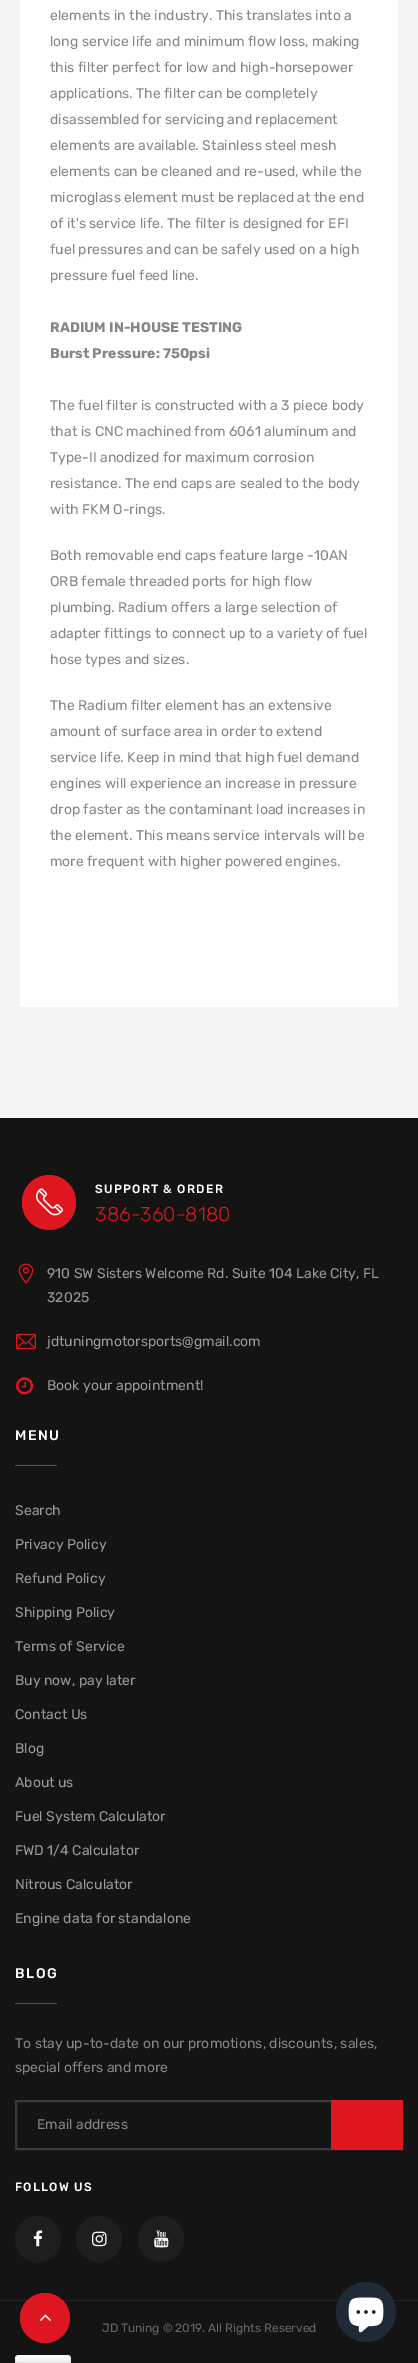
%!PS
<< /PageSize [418 2363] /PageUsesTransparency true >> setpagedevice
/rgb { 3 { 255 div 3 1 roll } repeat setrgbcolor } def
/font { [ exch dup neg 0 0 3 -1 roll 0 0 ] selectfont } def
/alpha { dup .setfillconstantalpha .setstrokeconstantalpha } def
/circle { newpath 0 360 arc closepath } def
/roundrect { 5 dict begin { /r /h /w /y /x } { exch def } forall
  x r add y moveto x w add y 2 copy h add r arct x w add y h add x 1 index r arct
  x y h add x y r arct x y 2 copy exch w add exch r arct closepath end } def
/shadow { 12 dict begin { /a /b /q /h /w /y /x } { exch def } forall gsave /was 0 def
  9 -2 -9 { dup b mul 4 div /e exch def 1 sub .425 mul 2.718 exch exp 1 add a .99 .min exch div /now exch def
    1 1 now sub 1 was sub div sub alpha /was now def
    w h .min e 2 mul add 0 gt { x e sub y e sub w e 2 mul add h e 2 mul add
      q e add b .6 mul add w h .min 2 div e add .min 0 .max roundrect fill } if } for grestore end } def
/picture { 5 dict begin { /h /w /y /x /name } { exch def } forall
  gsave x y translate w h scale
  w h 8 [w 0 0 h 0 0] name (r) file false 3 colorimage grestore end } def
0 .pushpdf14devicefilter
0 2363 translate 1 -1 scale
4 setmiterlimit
244 244 244 rgb
0 0 418 2363 rectfill
255 255 255 rgb
20 0 378 1007 rectfill
20 20 20 rgb
0 1118 418 1245 rectfill
(img/8.rgb) 15 2355 56 8 picture
0 0 0 rgb
0 2363 418 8 0 2.5 0.2 shadow
221 22 31 rgb
22 1175 54 55 27 roundrect fill
(img/1.rgb) 36 1188 27 28 picture
(img/2.rgb) 18 1263 16 21 picture
(img/3.rgb) 16 1333 20 17 picture
(img/4.rgb) 16 1377 18 18 picture
15 1465 42 1 rectfill
15 2003 42 1 rectfill
58 58 58 rgb
2 setlinewidth
16 2101 386 48 rectstroke
221 22 31 rgb
331 2100 72 50 rectfill
30 30 30 rgb
38 2239 23 circle fill
(img/5.rgb) 33 2230 10 17 picture
99 2239 23 circle fill
(img/6.rgb) 92 2231 15 16 picture
161 2239 23 circle fill
(img/7.rgb) 154 2230 15 18 picture
35 35 35 rgb
0 2300 418 1 rectfill
221 22 31 rgb
45 2318 25 circle fill
(img/9.rgb) 39 2314 12 7 picture
32 42 54 rgb
366 2312 30 circle fill
(img/10.rgb) 348 2297 36 36 picture
/Rubik-Regular 14 font
134 134 134 rgb
[
  [(elements in the industry. This translates into a) 50 20]
  [(long service life and minimum flow loss, making) 50 46]
  [(this filter perfect for low and high-horsepower) 50 72]
  [(applications. The filter can be completely) 50 98]
  [(disassembled for servicing and replacement) 50 124]
  [(elements are available. Stainless steel mesh) 50 150]
  [(elements can be cleaned and re-used, while the) 50 176]
  [(microglass element must be replaced at the end) 50 202]
  [(of it's service life. The filter is designed for EFI) 50 228]
  [(fuel pressures and can be safely used on a high) 50 254]
  [(pressure fuel feed line.) 50 280]
] { aload pop moveto show } forall
/Rubik-Bold 14 font
50 332 moveto (RADIUM IN-HOUSE TESTING) show
50 358 moveto (Burst Pressure: 750psi) show
/Rubik-Regular 14 font
[
  [(The fuel filter is constructed with a 3 piece body) 50 410]
  [(that is CNC machined from 6061 aluminum and) 50 436]
  [(Type-II anodized for maximum corrosion) 50 462]
  [(resistance. The end caps are sealed to the body) 50 488]
  [(with FKM O-rings.) 50 514]
  [(Both removable end caps feature large -10AN) 50 560]
  [(ORB female threaded ports for high flow) 50 586]
  [(plumbing. Radium offers a large selection of) 50 612]
  [(adapter fittings to connect up to a variety of fuel) 50 638]
  [(hose types and sizes.) 50 664]
  [(The Radium filter element has an extensive) 50 710]
  [(amount of surface area in order to extend) 50 736]
  [(service life. Keep in mind that high fuel demand) 50 762]
  [(engines will experience an increase in pressure) 50 788]
  [(drop faster as the contaminant load increases in) 50 814]
  [(the element. This means service intervals will be) 50 840]
  [(more frequent with higher powered engines.) 50 866]
] { aload pop moveto show } forall
/Rubik-Medium 12 font
255 255 255 rgb
95 1193 moveto 1.25 0 (SUPPORT & ORDER) ashow
/Rubik-Light 20 font
221 22 31 rgb
95 1221 moveto (386-360-8180) show
/Rubik-Regular 14 font
153 153 153 rgb
[
  [(910 SW Sisters Welcome Rd. Suite 104 Lake City, FL) 47 1278]
  [(32025) 47 1302]
  [(jdtuningmotorsports@gmail.com) 47 1346]
  [(Book your appointment!) 47 1390]
] { aload pop moveto show } forall
/Rubik-Medium 14 font
255 255 255 rgb
15 1440 moveto 1.5 0 (MENU) ashow
/Rubik-Regular 14 font
153 153 153 rgb
[
  [(Search) 15 1515]
  [(Privacy Policy) 15 1549]
  [(Refund Policy) 15 1583]
  [(Shipping Policy) 15 1617]
  [(Terms of Service) 15 1651]
  [(Buy now, pay later) 15 1685]
  [(Contact Us) 15 1719]
  [(Blog) 15 1753]
  [(About us) 15 1787]
  [(Fuel System Calculator) 15 1821]
  [(FWD 1/4 Calculator) 15 1855]
  [(Nitrous Calculator) 15 1889]
  [(Engine data for standalone) 15 1923]
] { aload pop moveto show } forall
/Rubik-Medium 14 font
255 255 255 rgb
15 1978 moveto 1.5 0 (BLOG) ashow
/Rubik-Regular 14 font
134 134 134 rgb
[
  [(To stay up-to-date on our promotions, discounts, sales,) 15 2048]
  [(special offers and more) 15 2072]
  [(Email address) 37 2129]
] { aload pop moveto show } forall
/Rubik-Medium 12 font
255 255 255 rgb
15 2191 moveto 1.25 0 (FOLLOW US) ashow
/Rubik-Regular 12 font
102 102 102 rgb
102 2332 moveto (JD Tuning © 2019. All Rights Reserved) show
.poppdf14devicefilter showpage
